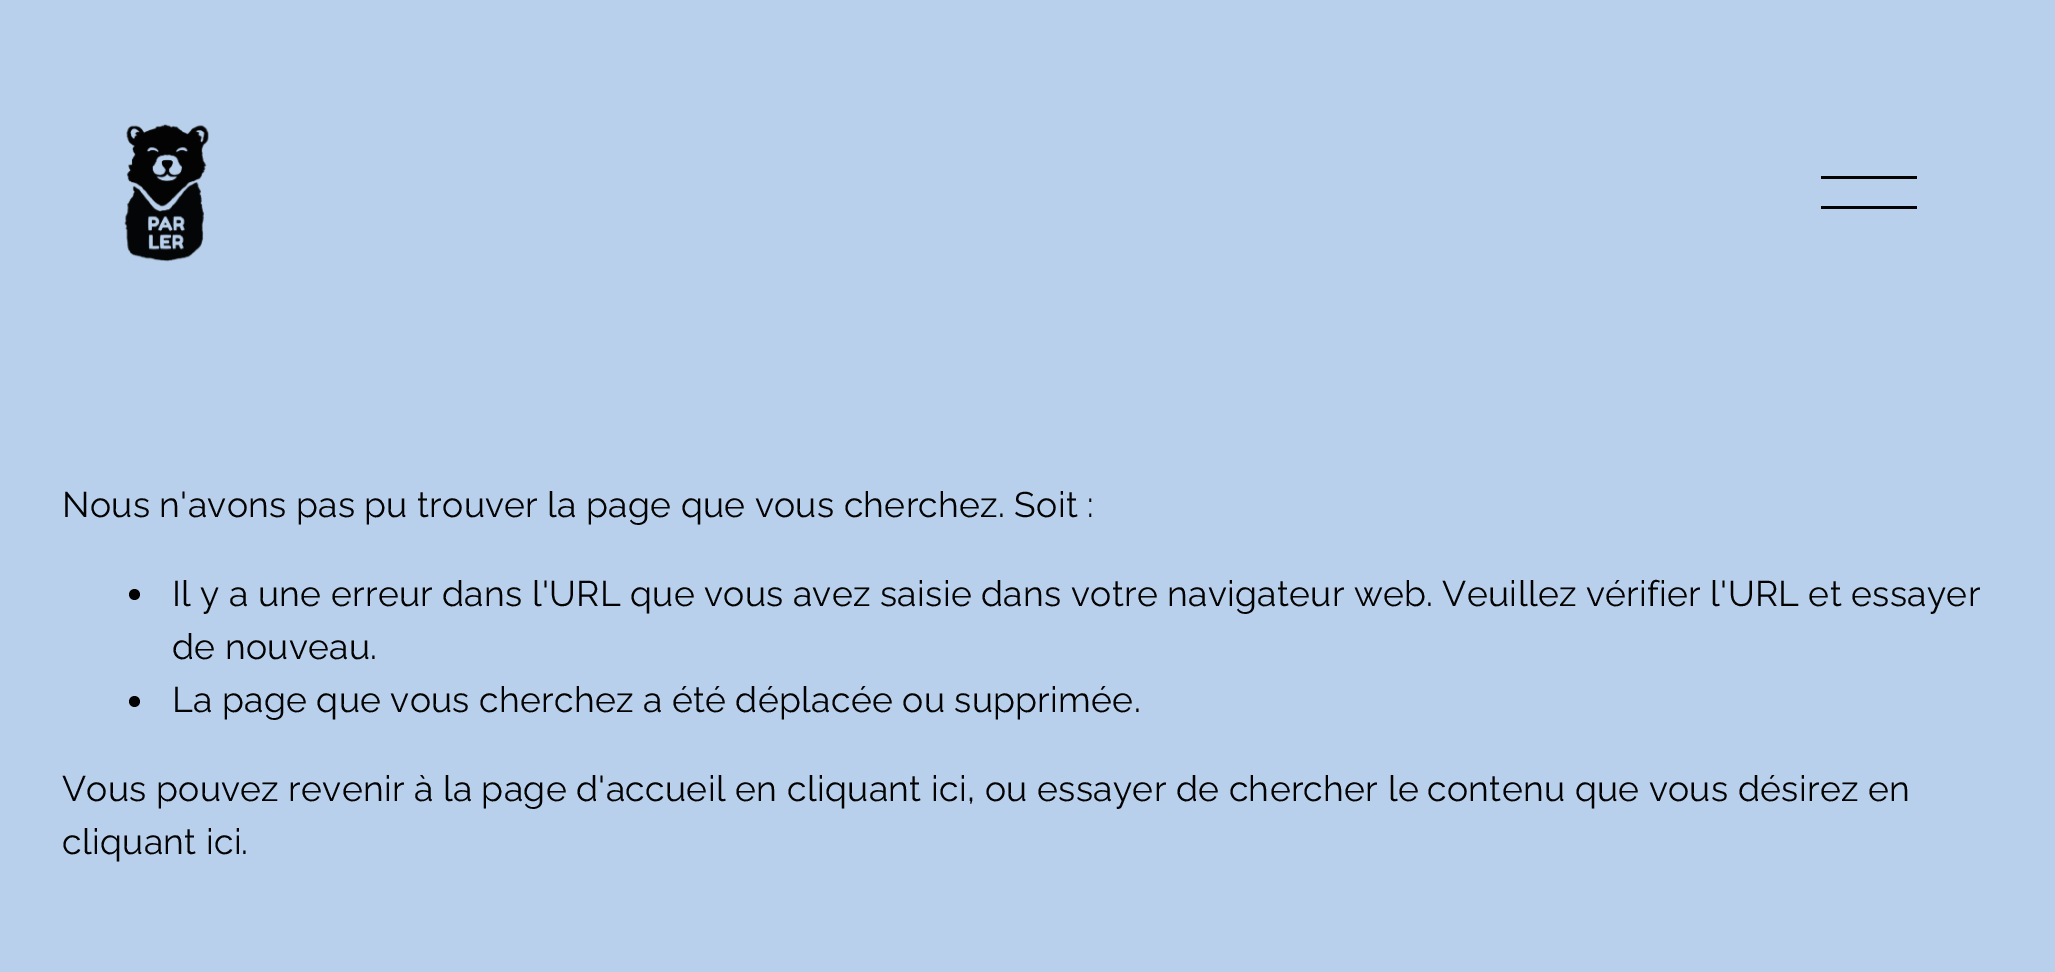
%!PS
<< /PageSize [2055 972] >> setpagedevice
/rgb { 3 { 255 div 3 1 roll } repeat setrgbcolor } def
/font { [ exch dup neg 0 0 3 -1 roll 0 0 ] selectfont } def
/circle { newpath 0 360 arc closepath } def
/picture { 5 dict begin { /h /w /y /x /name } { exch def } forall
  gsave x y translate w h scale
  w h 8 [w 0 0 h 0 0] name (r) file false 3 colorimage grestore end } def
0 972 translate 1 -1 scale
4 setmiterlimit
184 208 235 rgb
0 0 2055 972 rectfill
(img/1.rgb) 124 124 85 138 picture
2 2 3 rgb
1821 176 96 3 rectfill
1821 206 96 3 rectfill
134.5 594.5 5.5 circle fill
134.5 701.5 5.5 circle fill
/Raleway-Regular 35.47 font
62 517 moveto -0.2 0 32 0.35 0 (Nous n'avons pas pu trouver la page que vous cherchez. Soit :) awidthshow
172 606 moveto -0.2 0 32 0.35 0 (Il y a une erreur dans l'URL que vous avez saisie dans votre navigateur web. Veuillez vérifier l'URL et essayer) awidthshow
172 659 moveto 0.35 0 (de nouveau.) ashow
172 712 moveto -0.25 0 32 0.35 0 (La page que vous cherchez a été déplacée ou supprimée.) awidthshow
62 801 moveto -0.25 0 32 0.35 0 (Vous pouvez revenir à la page d'accueil en) awidthshow
787 801 moveto 0.35 0 (cliquant ici) ashow
967 801 moveto 0.35 0 (, ou essayer de chercher le) ashow
1427 801 moveto 0.35 0 (contenu que vous désirez en) ashow
62 854 moveto 0.35 0 (cliquant ici) ashow
241 854 moveto 0.35 0 (.) ashow
showpage
